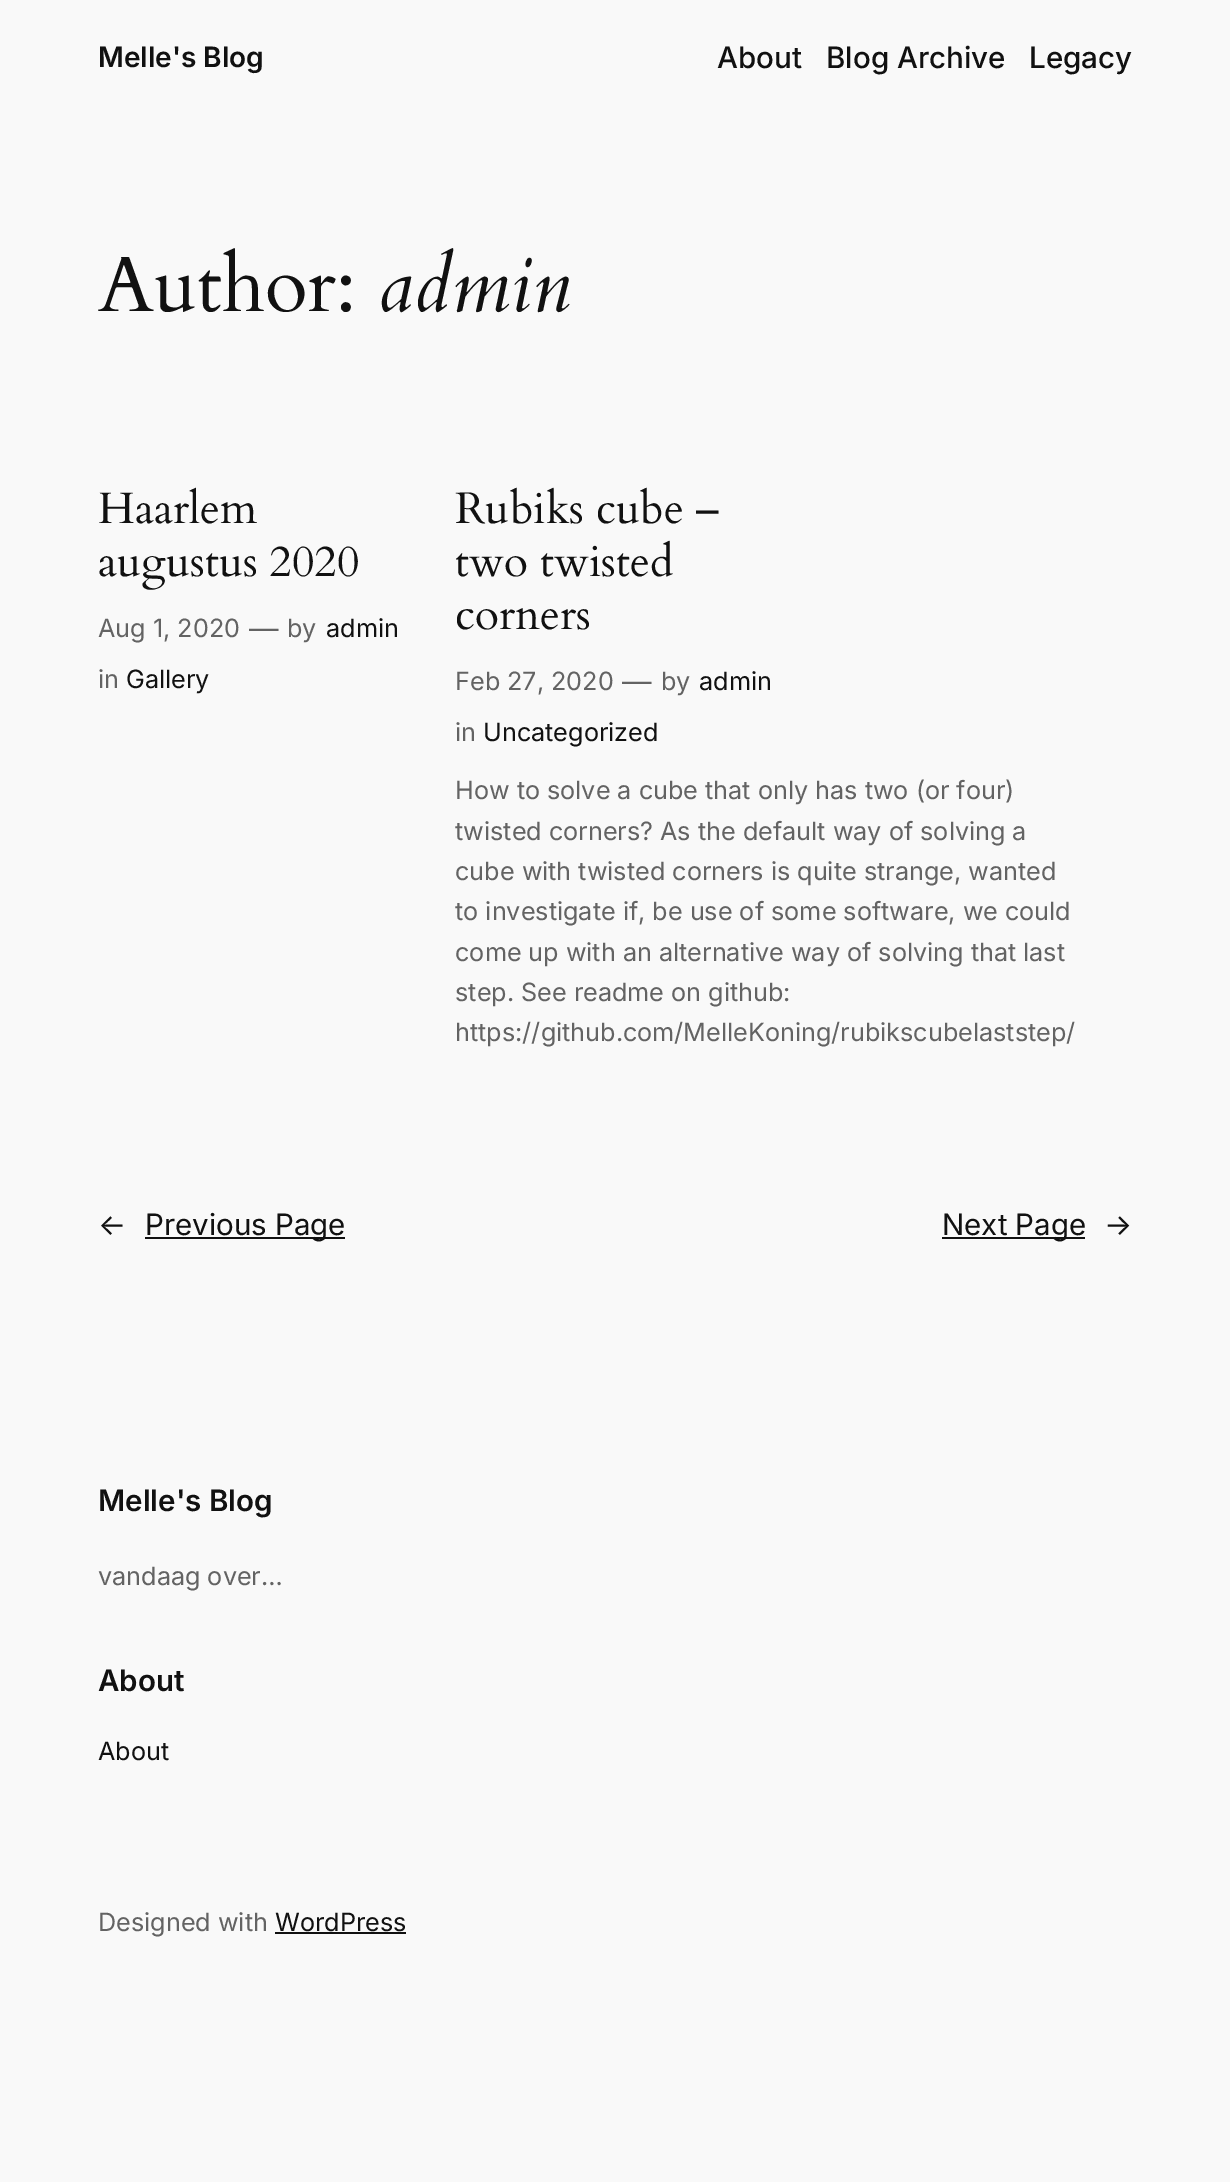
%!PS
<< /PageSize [1230 2182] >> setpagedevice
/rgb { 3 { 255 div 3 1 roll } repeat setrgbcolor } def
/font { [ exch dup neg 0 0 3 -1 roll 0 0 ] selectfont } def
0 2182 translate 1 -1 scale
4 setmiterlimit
249 249 249 rgb
0 0 1230 2182 rectfill
[
  [145 1237 200 2 17 17 17]
  [942 1237 143 2 17 17 17]
  [275 1932 131 2 17 17 17]
] { aload pop rgb rectfill } forall
/Inter-SemiBold 28 font
98 67 moveto (Melle's Blog) show
/Inter-Medium 29.5 font
[
  [(About) 717 68]
  [(Blog Archive) 826 68]
  [(Legacy) 1029 68]
] { aload pop moveto show } forall
/Cardo-Regular 78.5 font
98 311 moveto (Author:) show
/Cardo-Italic 78.5 font
378 311 moveto (admin) show
/Cardo-Regular 44 font
98 523 moveto (Haarlem) show
98 576 moveto (augustus 2020) show
/Inter-Regular 25.2 font
99 99 99 rgb
98 637 moveto (Aug 1, 2020) show
/Inter-Regular 29.5 font
249 639 moveto (—) show
/Inter-Regular 25.2 font
287 637 moveto (by) show
17 17 17 rgb
326 637 moveto (admin) show
99 99 99 rgb
98 688 moveto (in) show
17 17 17 rgb
126 688 moveto (Gallery) show
/Cardo-Regular 44 font
[
  [(Rubiks cube –) 455 523]
  [(two twisted) 455 576]
  [(corners) 455 629]
] { aload pop moveto show } forall
/Inter-Regular 25.2 font
99 99 99 rgb
455 690 moveto (Feb 27, 2020) show
/Inter-Regular 29.5 font
622 692 moveto (—) show
/Inter-Regular 25.2 font
661 690 moveto (by) show
17 17 17 rgb
699 690 moveto (admin) show
99 99 99 rgb
455 741 moveto (in) show
17 17 17 rgb
483 741 moveto (Uncategorized) show
99 99 99 rgb
[
  [(How to solve a cube that only has two \(or four\)) 455 799]
  [(twisted corners? As the default way of solving a) 455 840]
  [(cube with twisted corners is quite strange, wanted) 455 880]
  [(to investigate if, be use of some software, we could) 455 920]
  [(come up with an alternative way of solving that last) 455 961]
  [(step. See readme on github:) 455 1001]
  [(https://github.com/MelleKoning/rubikscubelaststep/) 455 1041]
] { aload pop moveto show } forall
/Inter-Regular 29.5 font
17 17 17 rgb
[
  [(←) 98 1235]
  [(Previous Page) 145 1235]
  [(Next Page) 942 1235]
  [(→) 1104 1235]
] { aload pop moveto show } forall
/Inter-SemiBold 29.5 font
98 1511 moveto (Melle's Blog) show
/Inter-Regular 25.2 font
99 99 99 rgb
98 1585 moveto (vandaag over…) show
/Inter-SemiBold 29.5 font
17 17 17 rgb
98 1691 moveto (About) show
/Inter-Regular 25.2 font
98 1760 moveto (About) show
99 99 99 rgb
98 1931 moveto (Designed with) show
17 17 17 rgb
275 1931 moveto (WordPress) show
showpage
